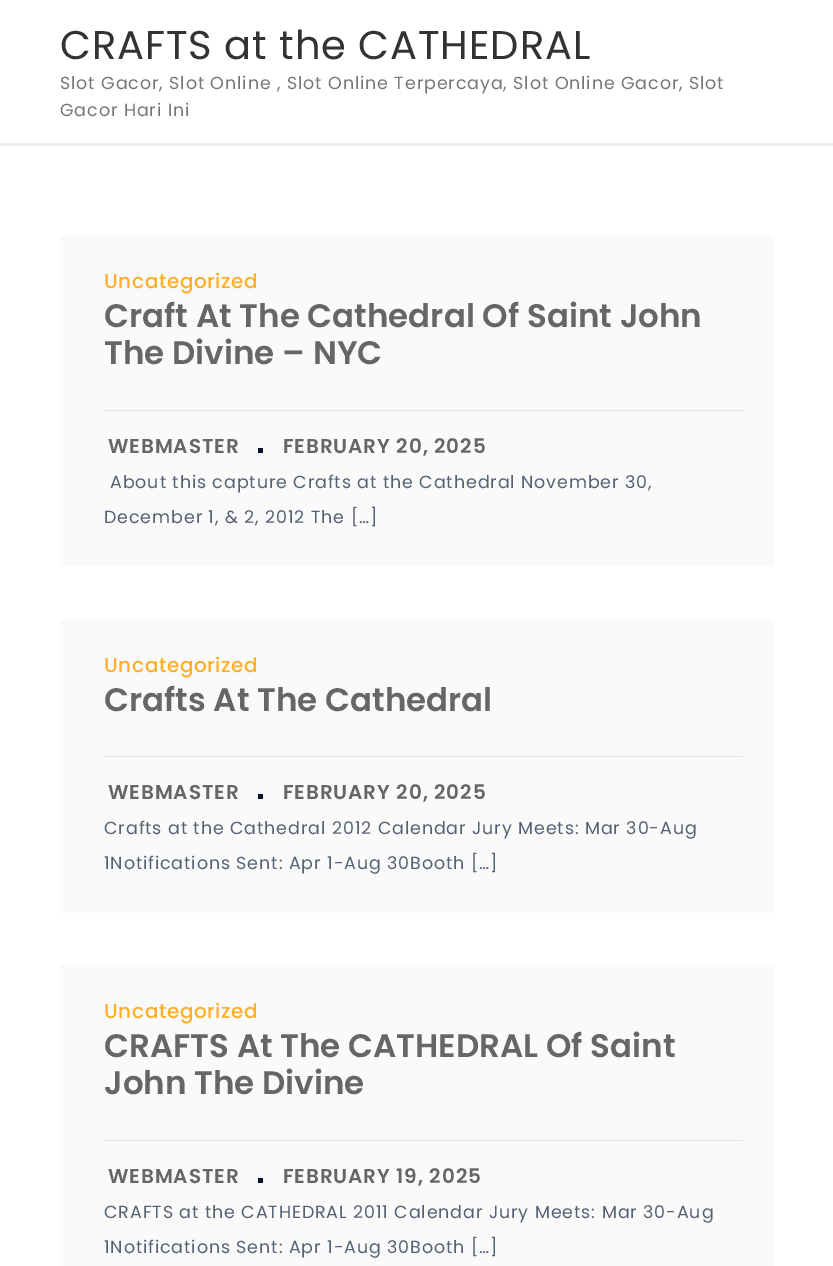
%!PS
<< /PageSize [833 1266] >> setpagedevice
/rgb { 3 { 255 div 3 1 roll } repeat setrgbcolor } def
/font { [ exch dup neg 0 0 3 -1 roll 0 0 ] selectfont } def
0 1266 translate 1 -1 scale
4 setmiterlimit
255 255 255 rgb
0 0 833 1266 rectfill
[
  [0 143 833 3 238 238 238]
  [60 235 714 331 250 250 250]
  [104 410 639 1 228 228 228]
  [258 448 5 5 4 21 39]
  [60 619 714 294 250 250 250]
  [104 756 639 1 228 228 228]
  [258 794 5 5 4 21 39]
  [60 965 714 301 250 250 250]
  [104 1140 639 1 228 228 228]
  [258 1178 5 5 4 21 39]
] { aload pop rgb rectfill } forall
/Poppins-Regular 40 font
51 51 51 rgb
60 59 moveto 0.88 0 (CRAFTS at the CATHEDRAL) ashow
/Poppins-Regular 17.5 font
119 119 119 rgb
60 89 moveto 0.88 0 (Slot Gacor, Slot Online , Slot Online Terpercaya, Slot Online Gacor, Slot) ashow
60 116 moveto 0.88 0 (Gacor Hari Ini) ashow
/Poppins-Medium 20 font
255 175 41 rgb
104 288 moveto 0.6 0 (Uncategorized) ashow
/Poppins-SemiBold 32.5 font
102 102 102 rgb
104 327 moveto (Craft At The Cathedral Of Saint John) show
104 364 moveto (The Divine – NYC) show
/Poppins-SemiBold 20 font
108 453 moveto 0.88 0 (WEBMASTER) ashow
283 453 moveto 0.88 0 (FEBRUARY 20, 2025) ashow
/Poppins-Regular 17.5 font
86 98 115 rgb
110 488 moveto 0.88 0 (About this capture Crafts at the Cathedral November 30,) ashow
104 523 moveto 0.88 0 (December 1, & 2, 2012 The […]) ashow
/Poppins-Medium 20 font
255 175 41 rgb
104 672 moveto 0.6 0 (Uncategorized) ashow
/Poppins-SemiBold 32.5 font
102 102 102 rgb
104 711 moveto (Crafts At The Cathedral) show
/Poppins-SemiBold 20 font
108 799 moveto 0.88 0 (WEBMASTER) ashow
283 799 moveto 0.88 0 (FEBRUARY 20, 2025) ashow
/Poppins-Regular 17.5 font
86 98 115 rgb
104 834 moveto 0.88 0 (Crafts at the Cathedral 2012 Calendar Jury Meets: Mar 30-Aug) ashow
104 869 moveto 0.88 0 (1Notifications Sent: Apr 1-Aug 30Booth […]) ashow
/Poppins-Medium 20 font
255 175 41 rgb
104 1018 moveto 0.6 0 (Uncategorized) ashow
/Poppins-SemiBold 32.5 font
102 102 102 rgb
104 1057 moveto (CRAFTS At The CATHEDRAL Of Saint) show
104 1094 moveto (John The Divine) show
/Poppins-SemiBold 20 font
108 1183 moveto 0.88 0 (WEBMASTER) ashow
283 1183 moveto 0.88 0 (FEBRUARY 19, 2025) ashow
/Poppins-Regular 17.5 font
86 98 115 rgb
104 1218 moveto 0.88 0 (CRAFTS at the CATHEDRAL 2011 Calendar Jury Meets: Mar 30-Aug) ashow
104 1253 moveto 0.88 0 (1Notifications Sent: Apr 1-Aug 30Booth […]) ashow
showpage
